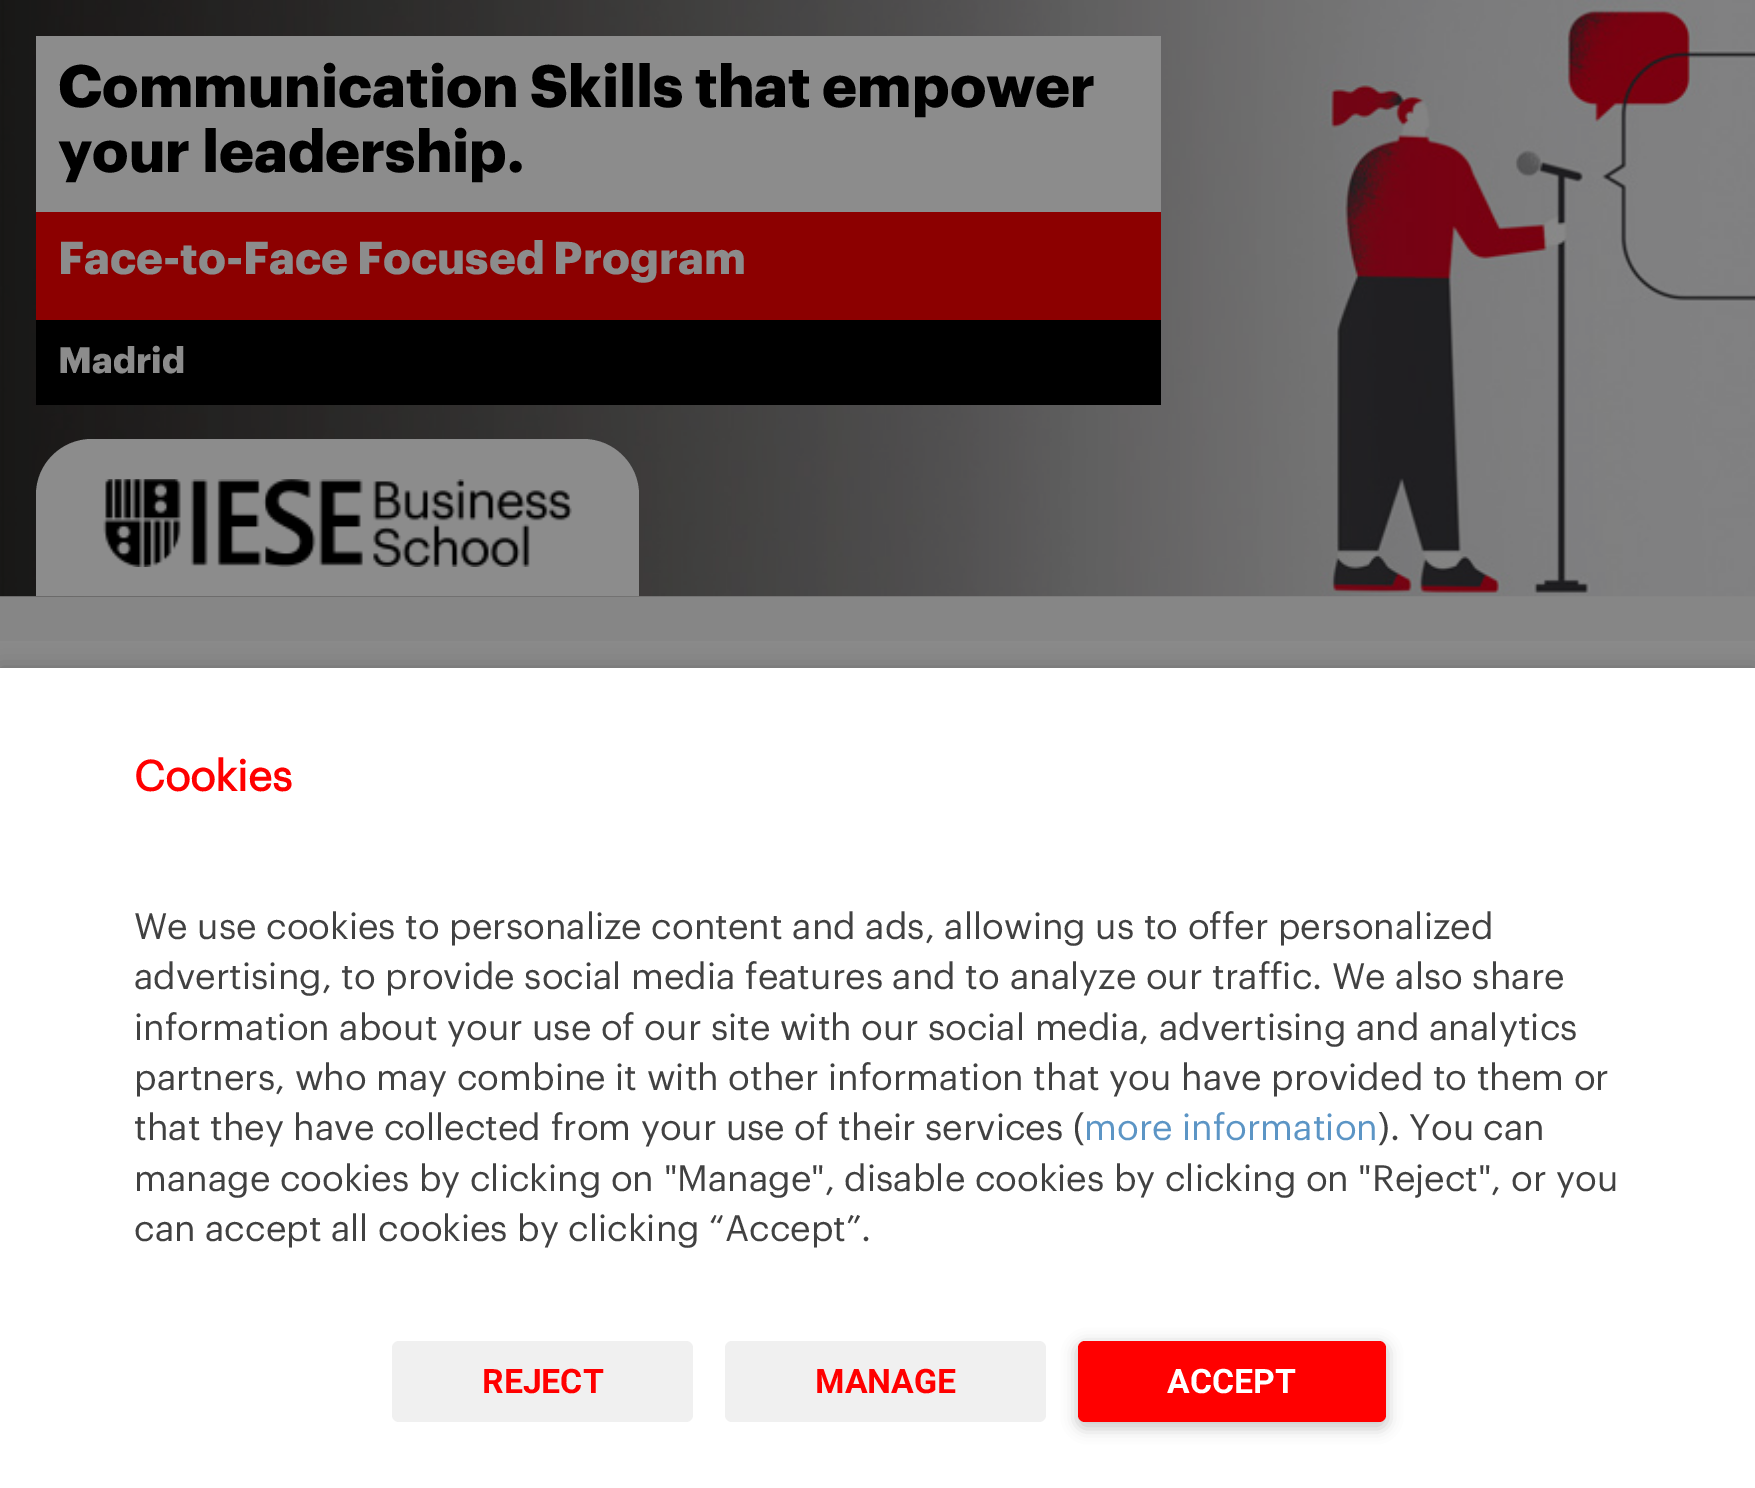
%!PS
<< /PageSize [1755 1488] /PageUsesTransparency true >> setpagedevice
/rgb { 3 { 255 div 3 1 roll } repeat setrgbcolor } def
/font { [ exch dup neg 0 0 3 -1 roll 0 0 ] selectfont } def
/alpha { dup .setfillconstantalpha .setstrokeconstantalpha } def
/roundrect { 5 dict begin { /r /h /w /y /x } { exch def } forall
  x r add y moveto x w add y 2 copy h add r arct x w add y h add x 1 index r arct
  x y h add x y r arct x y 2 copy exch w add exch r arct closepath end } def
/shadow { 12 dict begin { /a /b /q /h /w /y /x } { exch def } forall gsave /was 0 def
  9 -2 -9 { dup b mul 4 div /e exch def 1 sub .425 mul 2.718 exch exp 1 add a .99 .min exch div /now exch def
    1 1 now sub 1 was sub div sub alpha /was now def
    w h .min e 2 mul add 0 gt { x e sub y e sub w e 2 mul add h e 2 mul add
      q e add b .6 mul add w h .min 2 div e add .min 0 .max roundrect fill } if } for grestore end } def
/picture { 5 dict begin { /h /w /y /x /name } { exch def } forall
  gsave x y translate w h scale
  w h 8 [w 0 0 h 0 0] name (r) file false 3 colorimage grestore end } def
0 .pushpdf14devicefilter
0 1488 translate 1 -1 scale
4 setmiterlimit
134 134 134 rgb
0 0 1755 1488 rectfill
(img/1.rgb) 0 0 1755 597 picture
[
  [36 36 1125 176 140 140 140]
  [36 212 1125 108 140 0 0]
  [36 320 1125 85 0 0 0]
] { aload pop rgb rectfill } forall
140 140 140 rgb
92 439 moveto 583 439 lineto 614 439 639 464 639 495 curveto 639 596 lineto 36 596 lineto 36 495 lineto 36 464 61 439 92 439 curveto closepath fill
(img/2.rgb) 103 479 469 88 picture
138 138 138 rgb
0 641 1755 27 rectfill
0 0 0 rgb
0 668 1755 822 0 11 0.2 shadow
255 255 255 rgb
0 668 1755 820 rectfill
240 240 240 rgb
392 1341 301 81 7 roundrect fill
725 1341 321 81 7 roundrect fill
0 0 0 rgb
1076 1343 312 86 9 7 0.2 shadow
255 0 0 rgb
1078 1341 308 81 7 roundrect fill
/Graphik-Bold 58.5 font
0 0 0 rgb
58 107 moveto (Communication Skills that empower) show
58 172 moveto (your leadership.) show
/Graphik-Bold 45 font
140 140 140 rgb
58 274 moveto (Face-to-Face Focused Program) show
/Graphik-Bold 36 font
58 373 moveto (Madrid) show
/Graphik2-Bold 42 font
255 0 0 rgb
134 791 moveto (Cookies) show
/Graphik-Regular 36 font
65 65 65 rgb
[
  [(We use cookies to personalize content and ads, allowing us to offer personalized) 134 939]
  [(advertising, to provide social media features and to analyze our traffic. We also share) 134 989]
  [(information about your use of our site with our social media, advertising and analytics) 134 1040]
  [(partners, who may combine it with other information that you have provided to them or) 134 1090]
  [(that they have collected from your use of their services \() 134 1140]
] { aload pop moveto show } forall
92 149 197 rgb
1084 1140 moveto (more information) show
65 65 65 rgb
[
  [(\). You can) 1378 1140]
  [(manage cookies by clicking on "Manage", disable cookies by clicking on "Reject", or you) 134 1191]
  [(can accept all cookies by clicking “Accept”.) 134 1241]
] { aload pop moveto show } forall
/Roboto-Bold 33.75 font
255 0 0 rgb
482 1393 moveto (REJECT) show
815 1393 moveto (MANAGE) show
255 255 255 rgb
1167 1393 moveto (ACCEPT) show
.poppdf14devicefilter showpage
